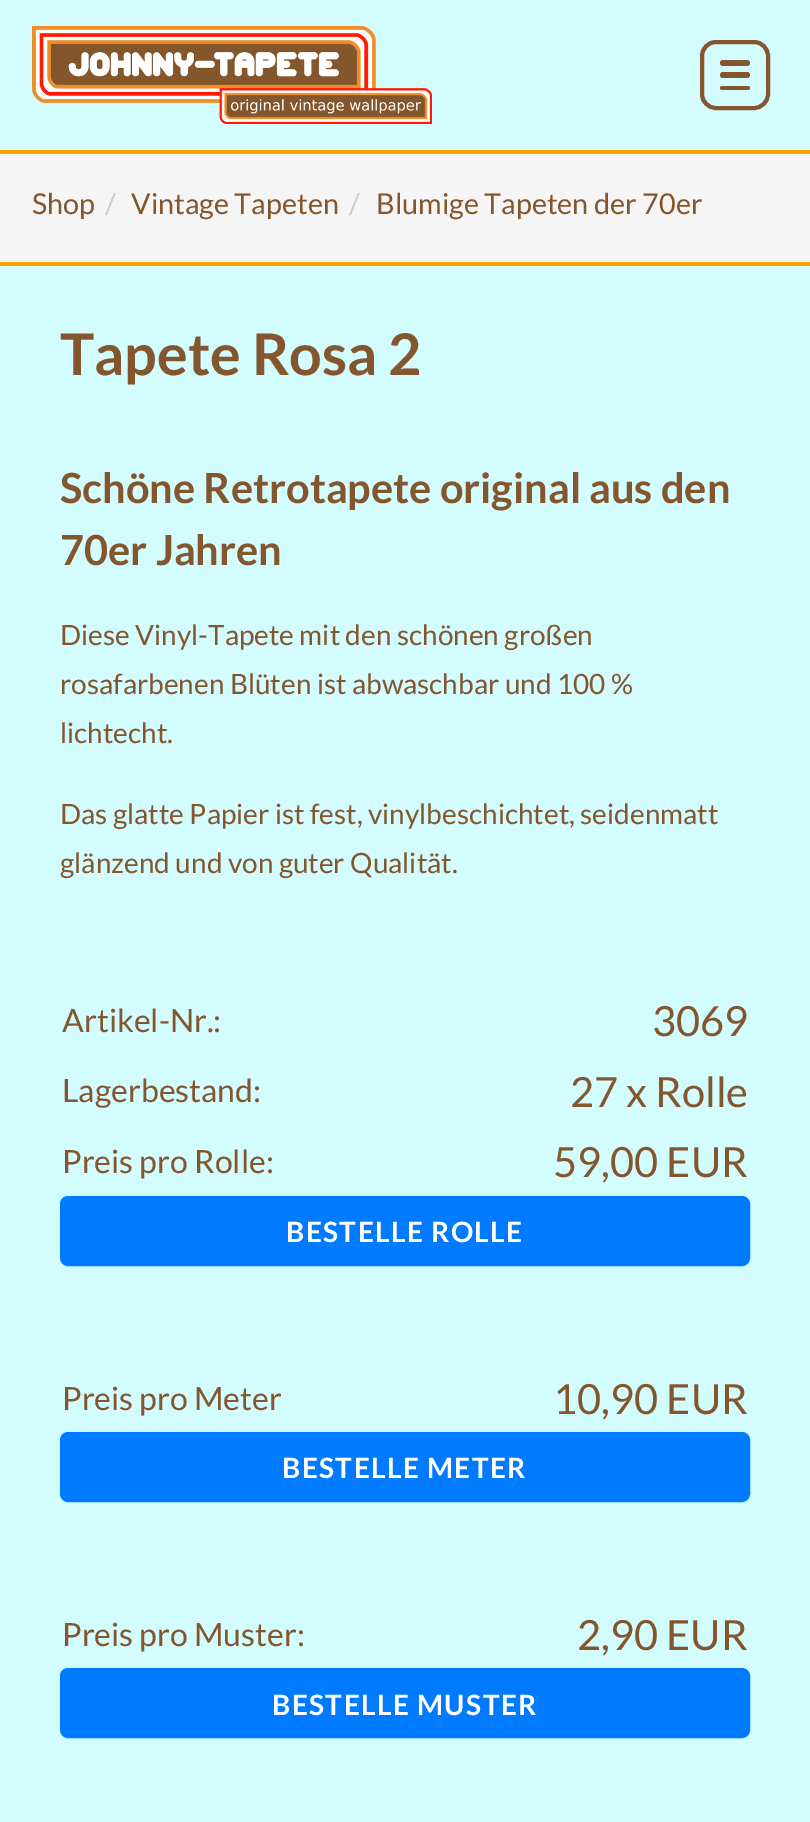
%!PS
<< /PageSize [810 1822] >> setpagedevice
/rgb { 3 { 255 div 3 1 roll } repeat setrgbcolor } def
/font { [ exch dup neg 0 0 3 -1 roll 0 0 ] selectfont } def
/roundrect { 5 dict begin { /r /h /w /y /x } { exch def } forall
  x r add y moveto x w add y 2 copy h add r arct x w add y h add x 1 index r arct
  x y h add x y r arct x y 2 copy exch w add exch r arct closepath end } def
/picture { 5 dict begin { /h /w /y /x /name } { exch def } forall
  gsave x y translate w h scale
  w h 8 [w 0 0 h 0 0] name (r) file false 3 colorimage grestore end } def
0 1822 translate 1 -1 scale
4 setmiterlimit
211 252 254 rgb
0 0 810 1822 rectfill
(img/1.rgb) 32 26 400 98 picture
132 86 46 rgb
4 setlinewidth
702 42 66 66 14 roundrect stroke
720 60 30 6 3 roundrect fill
720 72 30 6 3 roundrect fill
720 86 30 4 2 roundrect fill
[
  [0 154 810 108 245 245 245]
  [0 150 810 4 255 165 0]
  [0 262 810 4 255 165 0]
] { aload pop rgb rectfill } forall
0 123 255 rgb
61 1197 688 68 7 roundrect gsave fill grestore
2 setlinewidth
stroke
61 1433 688 68 7 roundrect gsave fill grestore
stroke
61 1669 688 68 7 roundrect gsave fill grestore
stroke
/Lato-Regular 28.75 font
132 86 46 rgb
32 214 moveto (Shop) show
204 204 204 rgb
105 214 moveto (/) show
132 86 46 rgb
131 214 moveto (Vintage Tapeten) show
204 204 204 rgb
349 214 moveto (/) show
132 86 46 rgb
376 214 moveto (Blumige Tapeten der 70er) show
/Lato-Bold 57.5 font
60 375 moveto (Tapete Rosa 2) show
/Lato-Bold 41.6 font
60 503 moveto (Schöne Retrotapete original aus den) show
60 565 moveto (70er Jahren) show
/Lato-Regular 28 font
[
  [(Diese Vinyl-Tapete mit den schönen großen) 60 645]
  [(rosafarbenen Blüten ist abwaschbar und 100 %) 60 694]
  [(lichtecht.) 60 743]
  [(Das glatte Papier ist fest, vinylbeschichtet, seidenmatt) 60 824]
  [(glänzend und von guter Qualität.) 60 873]
] { aload pop moveto show } forall
/Lato-Regular 32 font
62 1032 moveto (Artikel-Nr.:) show
/Lato-Regular 41.6 font
652 1036 moveto (3069) show
/Lato-Regular 32 font
62 1102 moveto (Lagerbestand:) show
/Lato-Regular 41.6 font
570 1107 moveto (27 x Rolle) show
/Lato-Regular 32 font
62 1173 moveto (Preis pro Rolle:) show
/Lato-Regular 41.6 font
553 1177 moveto (59,00 EUR) show
/Lato-Bold 28 font
255 255 255 rgb
286 1242 moveto 1.4 0 (BESTELLE ROLLE) ashow
/Lato-Regular 32 font
132 86 46 rgb
62 1410 moveto (Preis pro Meter) show
/Lato-Regular 41.6 font
553 1414 moveto (10,90 EUR) show
/Lato-Bold 28 font
255 255 255 rgb
282 1478 moveto 1.4 0 (BESTELLE METER) ashow
/Lato-Regular 32 font
132 86 46 rgb
62 1646 moveto (Preis pro Muster:) show
/Lato-Regular 41.6 font
577 1650 moveto (2,90 EUR) show
/Lato-Bold 28 font
255 255 255 rgb
272 1715 moveto 1.4 0 (BESTELLE MUSTER) ashow
showpage
